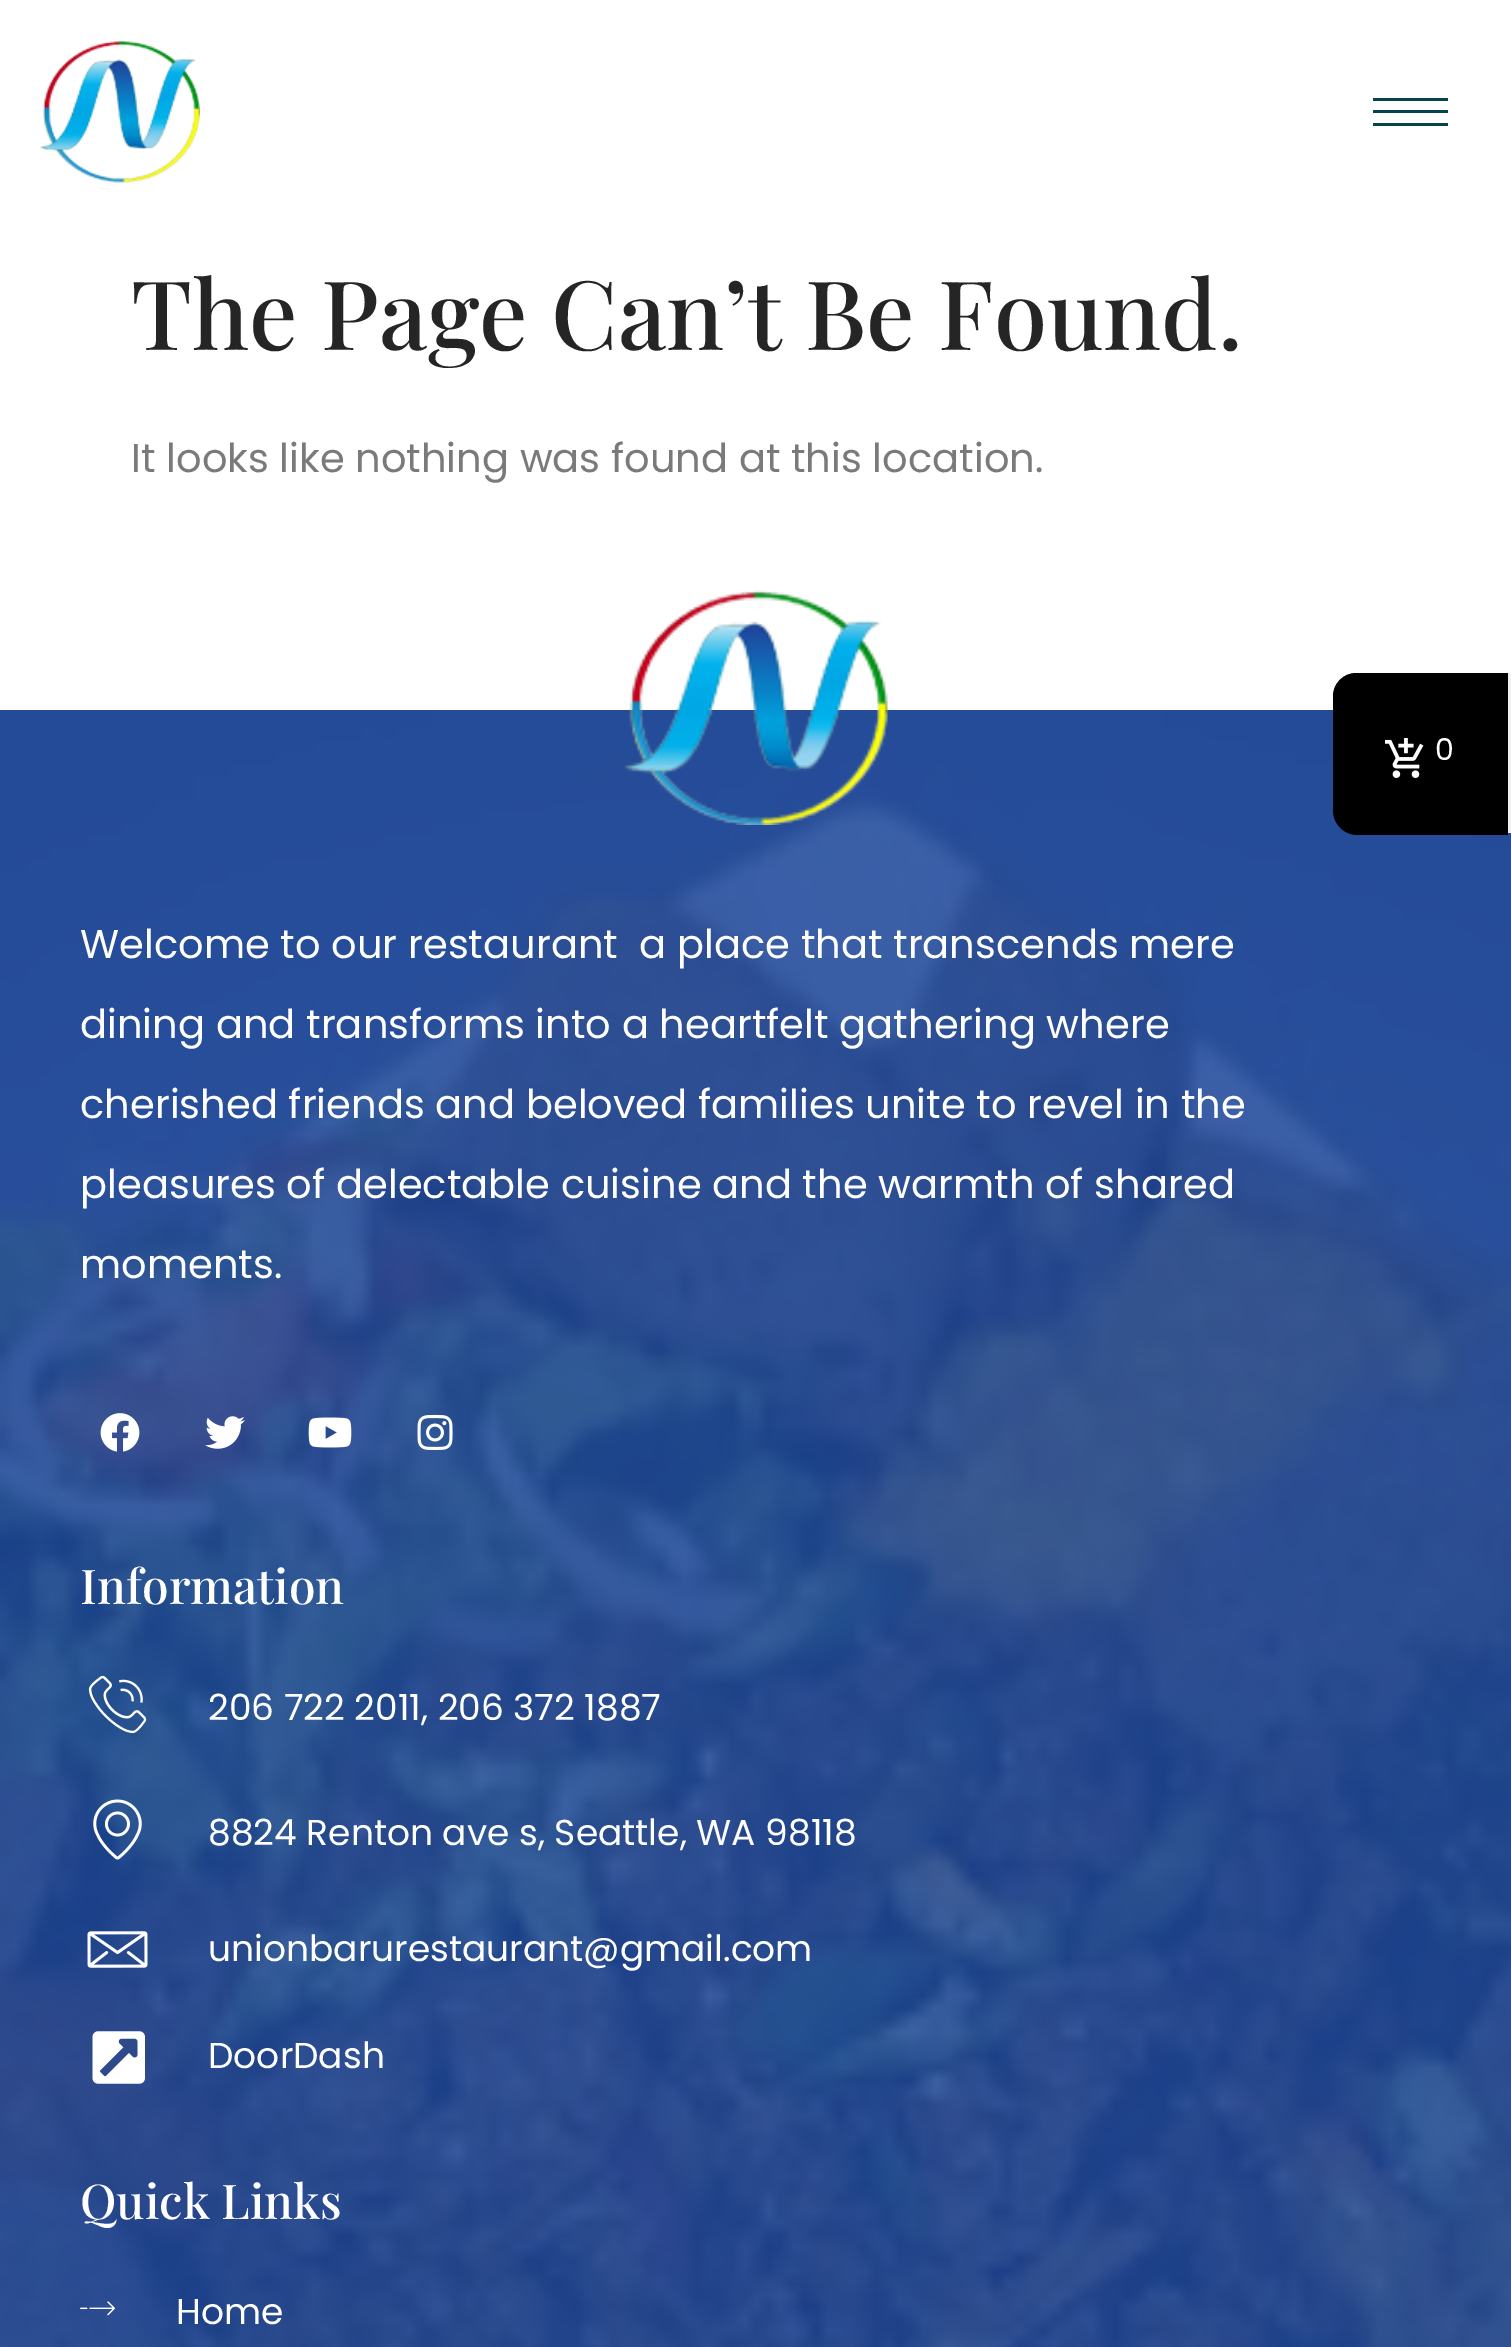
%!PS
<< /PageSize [1511 2347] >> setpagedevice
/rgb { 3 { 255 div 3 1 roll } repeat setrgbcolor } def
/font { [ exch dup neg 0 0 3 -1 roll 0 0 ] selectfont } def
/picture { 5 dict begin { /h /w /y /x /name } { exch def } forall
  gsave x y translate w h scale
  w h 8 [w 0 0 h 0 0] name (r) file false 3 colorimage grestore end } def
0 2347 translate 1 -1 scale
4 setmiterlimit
255 255 255 rgb
0 0 1511 2347 rectfill
(img/1.rgb) 40 40 160 143 picture
[
  [1373 98 75 3 4 69 73]
  [1373 110 75 3 4 69 73]
  [1373 123 75 3 4 69 73]
] { aload pop rgb rectfill } forall
(img/3.rgb) 0 710 1511 1637 picture
0 0 0 rgb
1356 673 moveto 1508 673 lineto 1508 835 lineto 1358 835 lineto 1344 835 1333 824 1333 810 curveto 1333 696 lineto 1333 683.5 1343.5 673 1356 673 curveto closepath fill
(img/2.rgb) 1385 738 39 40 picture
241 241 241 rgb
1508 673 3 160 rectfill
(img/4.rgb) 625 590 263 235 picture
(img/5.rgb) 100 1413 40 39 picture
(img/6.rgb) 205 1416 40 33 picture
(img/7.rgb) 308 1417 44 31 picture
(img/8.rgb) 417 1414 36 36 picture
(img/9.rgb) 88 1675 59 59 picture
(img/10.rgb) 93 1799 49 61 picture
(img/11.rgb) 87 1931 61 37 picture
(img/12.rgb) 92 2031 53 53 picture
(img/13.rgb) 80 2301 35 15 picture
/PlayfairDisplay-Medium 96 font
37 37 37 rgb
131 350 moveto (The Page Can’t Be Found.) show
/Poppins-Regular 40 font
122 122 122 rgb
131 472 moveto (It looks like nothing was found at this location.) show
/Poppins-Regular 30 font
255 255 255 rgb
1435 760 moveto (0) show
/Poppins-Regular 40 font
[
  [(Welcome to our restaurant  a place that transcends mere) 80 958]
  [(dining and transforms into a heartfelt gathering where) 80 1038]
  [(cherished friends and beloved families unite to revel in the) 80 1118]
  [(pleasures of delectable cuisine and the warmth of shared) 80 1198]
  [(moments.) 80 1278]
] { aload pop moveto show } forall
/PlayfairDisplay-Medium 48 font
80 1604 moveto (Information) show
/Poppins-Regular 36 font
[
  [(206 722 2011, 206 372 1887) 208 1720]
  [(8824 Renton ave s, Seattle, WA 98118) 208 1845]
  [(unionbarurestaurant@gmail.com) 208 1961]
  [(DoorDash) 208 2068]
] { aload pop moveto show } forall
/PlayfairDisplay-Medium 48 font
80 2219 moveto (Quick Links) show
/Poppins-Regular 36 font
176 2324 moveto (Home) show
showpage
